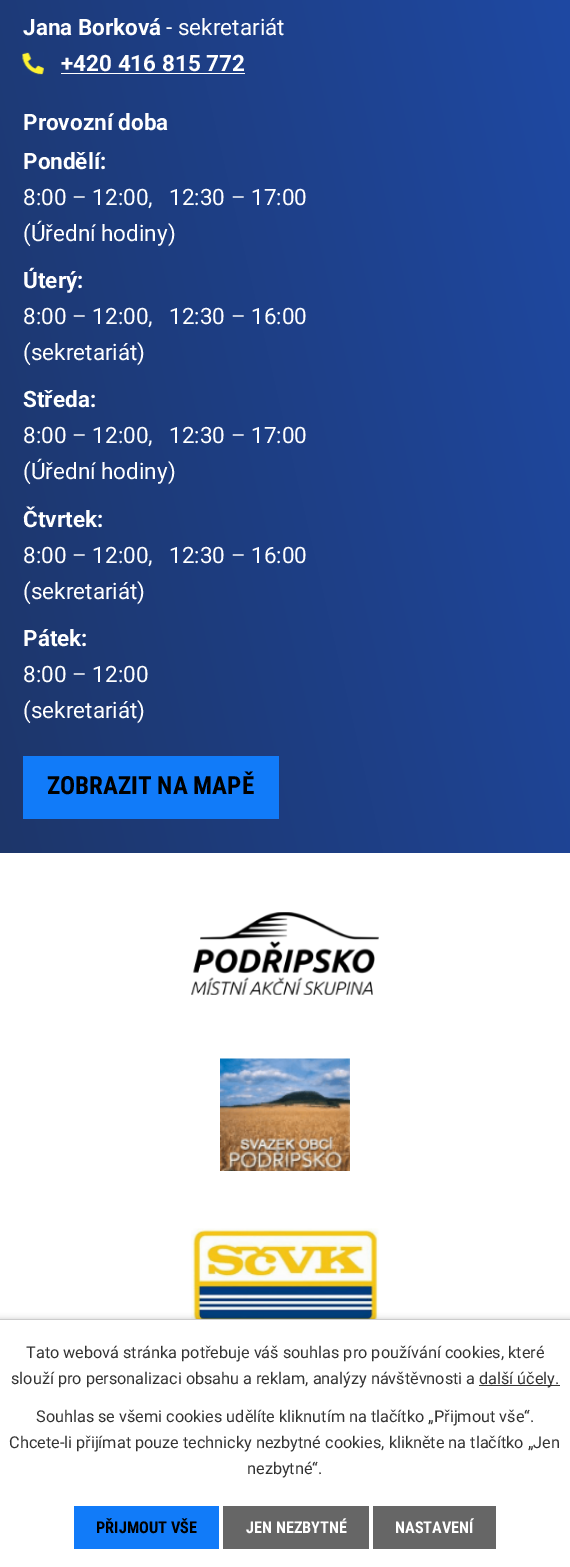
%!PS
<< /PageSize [570 1567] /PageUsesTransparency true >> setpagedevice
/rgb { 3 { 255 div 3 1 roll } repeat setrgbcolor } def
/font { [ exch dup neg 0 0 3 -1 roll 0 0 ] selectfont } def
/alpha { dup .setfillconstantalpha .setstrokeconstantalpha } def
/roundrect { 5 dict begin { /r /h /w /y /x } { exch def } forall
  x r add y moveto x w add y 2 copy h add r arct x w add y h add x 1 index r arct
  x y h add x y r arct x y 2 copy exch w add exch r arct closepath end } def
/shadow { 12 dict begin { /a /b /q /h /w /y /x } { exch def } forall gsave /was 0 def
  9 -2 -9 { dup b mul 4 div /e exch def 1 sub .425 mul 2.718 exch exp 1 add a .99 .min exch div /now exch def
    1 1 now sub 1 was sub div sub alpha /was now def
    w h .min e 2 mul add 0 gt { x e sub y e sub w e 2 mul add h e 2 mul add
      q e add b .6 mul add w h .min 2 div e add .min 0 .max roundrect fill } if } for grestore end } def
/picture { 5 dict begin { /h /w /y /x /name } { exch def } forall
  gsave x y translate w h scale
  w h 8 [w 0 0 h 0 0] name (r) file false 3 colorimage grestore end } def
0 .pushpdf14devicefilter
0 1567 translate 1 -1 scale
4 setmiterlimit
255 255 255 rgb
0 0 570 1567 rectfill
gsave 0 0 moveto 570 0 lineto 570 853 lineto 0 853 lineto closepath clip newpath
<< /ShadingType 2 /ColorSpace /DeviceRGB /Coords [-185 764 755 547] /Extend [true true] /Function << /FunctionType 2 /Domain [0 1] /C0 [0.114 0.196 0.369] /C1 [0.118 0.29 0.655] /N 1 >> >> shfill grestore
(img/1.rgb) 22 52 22 23 picture
61 73 184 1 rectfill
17 123 249 rgb
23 756 256 63 rectfill
(img/2.rgb) 191 912 188 83 picture
(img/3.rgb) 220 1058 130 113 picture
(img/4.rgb) 191 1228 188 91 picture
0 0 0 rgb
0 1319 570 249 0 3 0.2 shadow
[
  [0 1320 570 247 255 255 255]
  [0 1319 570 1 204 204 204]
  [479 1385 81 1 51 51 51]
  [74 1506 145 43 17 123 249]
  [223 1506 146 43 102 102 102]
  [373 1506 123 43 102 102 102]
] { aload pop rgb rectfill } forall
/Roboto-Bold 22.5 font
255 255 255 rgb
23 35 moveto (Jana Borková) show
/Roboto-Regular 22.5 font
166 35 moveto (- sekretariát) show
/Roboto-Bold 22.5 font
[
  [(+420 416 815 772) 61 71]
  [(Provozní doba) 23 130]
  [(Pondělí:) 23 169]
] { aload pop moveto show } forall
/Roboto-Regular 22.5 font
[
  [(8:00 – 12:00,) 23 205]
  [(12:30 – 17:00) 169 205]
  [(\(Úřední hodiny\)) 23 241]
] { aload pop moveto show } forall
/Roboto-Bold 22.5 font
23 288 moveto (Úterý:) show
/Roboto-Regular 22.5 font
[
  [(8:00 – 12:00,) 23 324]
  [(12:30 – 16:00) 169 324]
  [(\(sekretariát\)) 23 360]
] { aload pop moveto show } forall
/Roboto-Bold 22.5 font
23 407 moveto (Středa:) show
/Roboto-Regular 22.5 font
[
  [(8:00 – 12:00,) 23 443]
  [(12:30 – 17:00) 169 443]
  [(\(Úřední hodiny\)) 23 479]
] { aload pop moveto show } forall
/Roboto-Bold 22.5 font
23 527 moveto (Čtvrtek:) show
/Roboto-Regular 22.5 font
[
  [(8:00 – 12:00,) 23 563]
  [(12:30 – 16:00) 169 563]
  [(\(sekretariát\)) 23 599]
] { aload pop moveto show } forall
/Roboto-Bold 22.5 font
23 646 moveto (Pátek:) show
/Roboto-Regular 22.5 font
23 682 moveto (8:00 – 12:00) show
23 718 moveto (\(sekretariát\)) show
/RobotoCondensed-Bold 25 font
0 0 0 rgb
47 794 moveto (ZOBRAZIT NA MAPĚ) show
/Roboto-Regular 16.25 font
51 51 51 rgb
[
  [(Tato webová stránka potřebuje váš souhlas pro používání cookies, které) 26 1358]
  [(slouží pro personalizaci obsahu a reklam, analýzy návštěvnosti a) 11 1384]
  [(další účely.) 479 1384]
  [(Souhlas se všemi cookies udělíte kliknutím na tlačítko „Přijmout vše“.) 36 1422]
  [(Chcete-li přijímat pouze technicky nezbytné cookies, klikněte na tlačítko „Jen) 9 1448]
  [(nezbytné“.) 247 1474]
] { aload pop moveto show } forall
/RobotoCondensed-Bold 16.25 font
0 0 0 rgb
96 1533 moveto (PŘIJMOUT VŠE) show
255 255 255 rgb
246 1533 moveto (JEN NEZBYTNÉ) show
395 1533 moveto (NASTAVENÍ) show
.poppdf14devicefilter showpage
